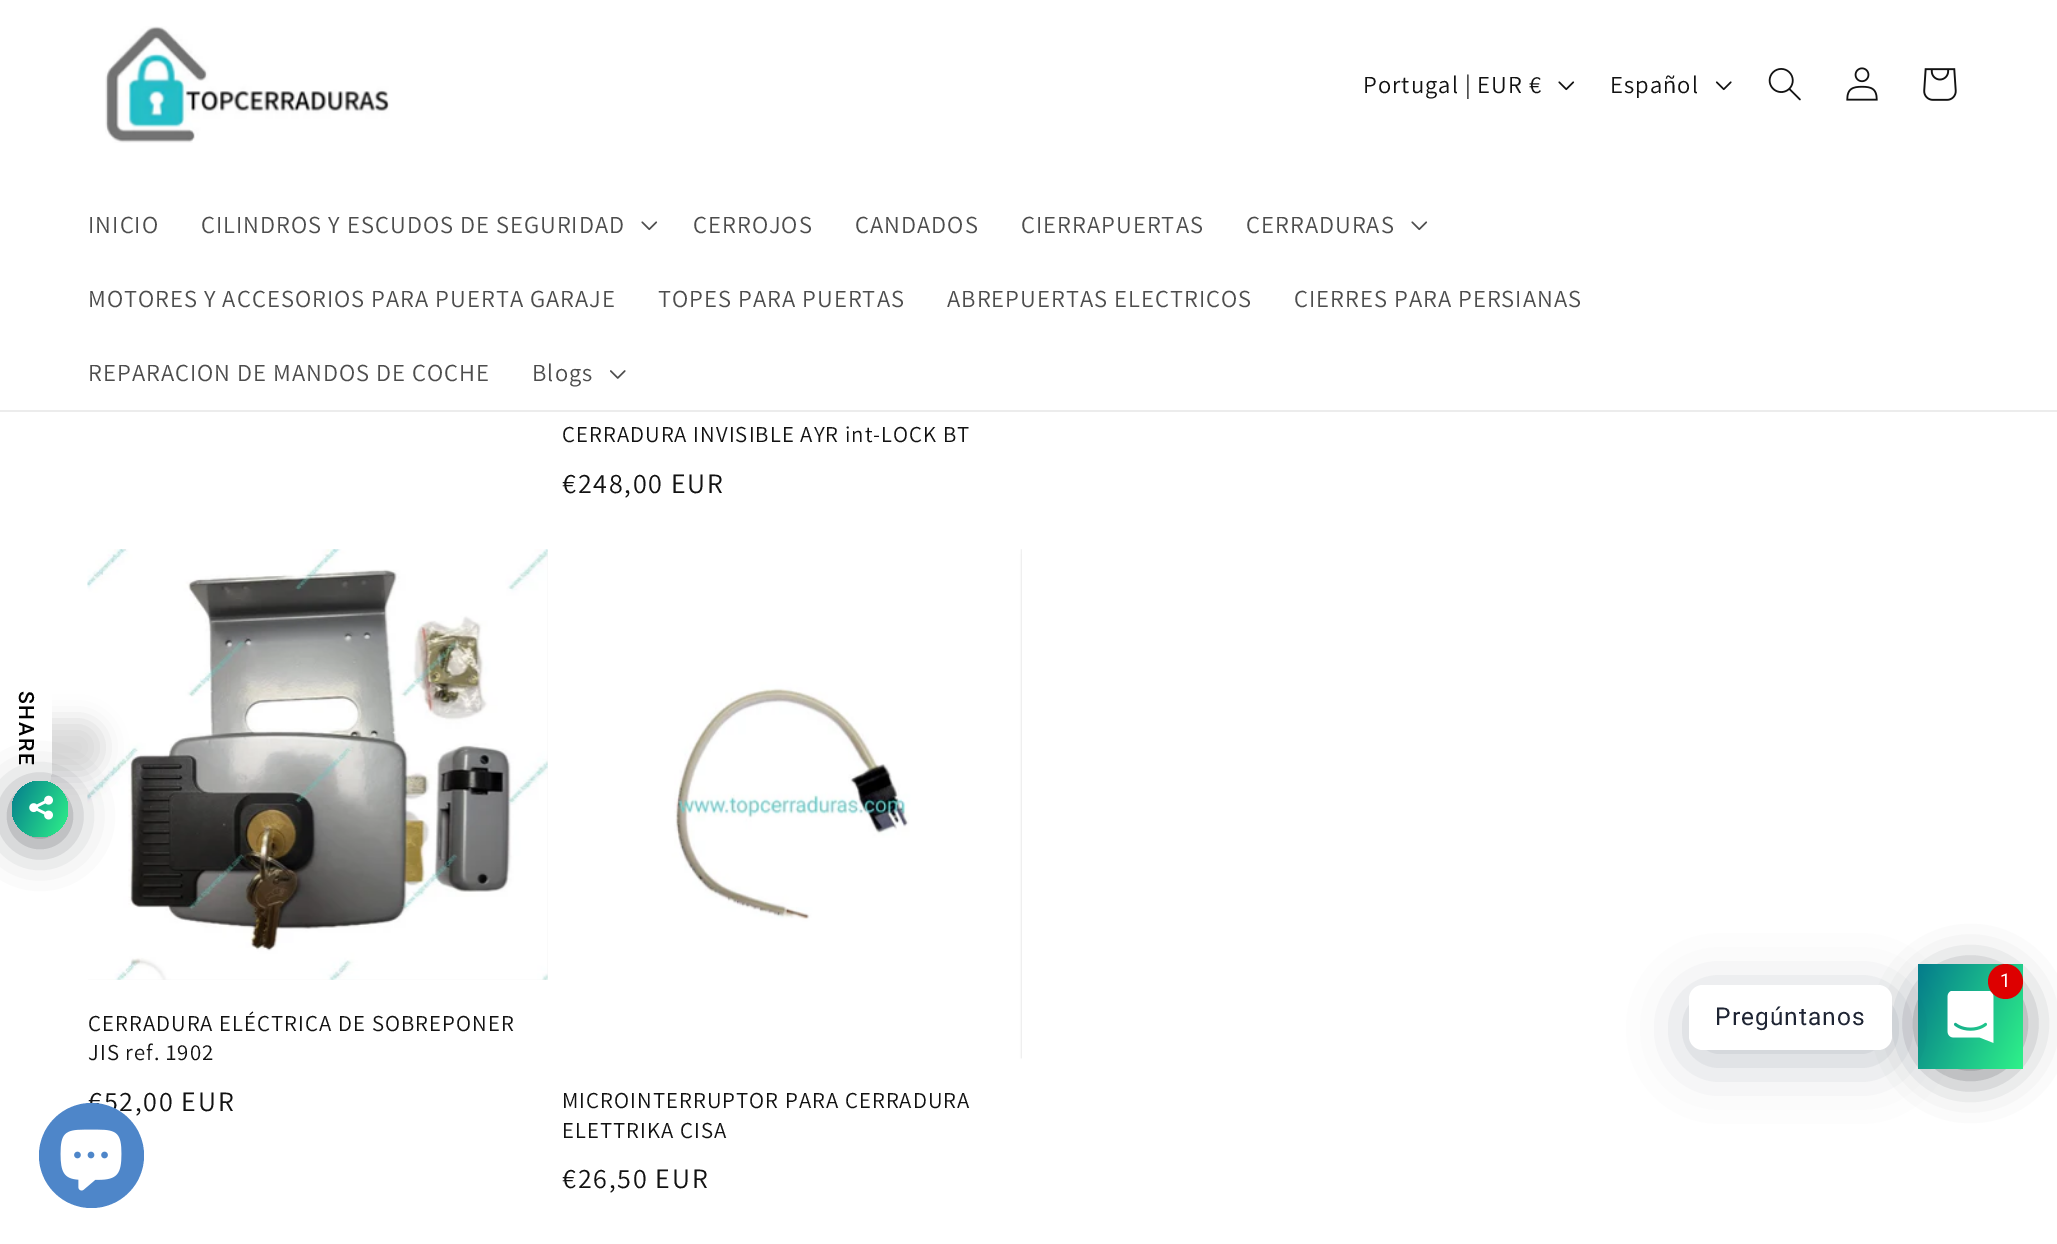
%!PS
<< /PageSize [2057 1244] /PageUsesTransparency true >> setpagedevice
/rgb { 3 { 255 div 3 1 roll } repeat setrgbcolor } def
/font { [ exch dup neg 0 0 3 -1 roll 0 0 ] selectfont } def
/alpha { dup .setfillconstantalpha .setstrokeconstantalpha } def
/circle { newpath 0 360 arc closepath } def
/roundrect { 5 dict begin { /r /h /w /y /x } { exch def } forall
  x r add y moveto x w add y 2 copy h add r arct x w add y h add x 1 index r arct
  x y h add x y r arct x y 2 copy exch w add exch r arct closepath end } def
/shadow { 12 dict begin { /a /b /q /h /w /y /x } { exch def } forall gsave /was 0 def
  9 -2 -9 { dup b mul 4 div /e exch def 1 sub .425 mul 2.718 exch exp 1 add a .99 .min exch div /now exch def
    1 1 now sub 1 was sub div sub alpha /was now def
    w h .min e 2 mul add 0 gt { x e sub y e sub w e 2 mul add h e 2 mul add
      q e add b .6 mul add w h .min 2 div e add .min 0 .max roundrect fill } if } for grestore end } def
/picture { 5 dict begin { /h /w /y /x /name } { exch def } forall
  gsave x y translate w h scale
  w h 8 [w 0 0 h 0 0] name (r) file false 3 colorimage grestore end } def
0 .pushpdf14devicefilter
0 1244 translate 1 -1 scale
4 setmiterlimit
255 255 255 rgb
0 0 2057 1244 rectfill
236 236 236 rgb
0 410 2057 2 rectfill
(img/1.rgb) 105 26 285 117 picture
(img/2.rgb) 1558 81 17 10 picture
(img/3.rgb) 1715 81 17 10 picture
(img/4.rgb) 1768 68 33 33 picture
(img/5.rgb) 1846 67 32 34 picture
(img/6.rgb) 1923 68 34 33 picture
(img/7.rgb) 641 221 17 10 picture
(img/7.rgb) 1411 221 17 10 picture
(img/8.rgb) 610 370 16 9 picture
243 243 243 rgb
88 550 460 430 rectfill
(img/9.rgb) 87 549 461 431 picture
(img/10.rgb) 562 549 460 510 picture
gsave
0 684 moveto 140 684 lineto 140 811 lineto 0 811 lineto closepath 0 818.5 moveto 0 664.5 lineto 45.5 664.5 lineto 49.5 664.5 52.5 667.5 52.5 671.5 curveto 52.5 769.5 lineto 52.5 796.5 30.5 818.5 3.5 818.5 curveto closepath eoclip newpath
0 0 0 rgb
-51 721 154 53 49 12 0.15 shadow
grestore
2 6 16 rgb
12 788 56 56 28 21 0.5 shadow
gsave 40 809 28 circle clip newpath
<< /ShadingType 2 /ColorSpace /DeviceRGB /Coords [6.5 793 74 824] /Extend [true true] /Function << /FunctionType 2 /Domain [0 1] /C0 [0.016 0.486 0.553] /C1 [0.184 0.949 0.537] /N 1 >> >> shfill grestore
(img/11.rgb) 29 795 24 25 picture
1918 971 105 105 52.5 21 0.5 shadow
gsave 1918 964 moveto 2023 964 lineto 2023 1069 lineto 1918 1069 lineto closepath clip newpath
<< /ShadingType 2 /ColorSpace /DeviceRGB /Coords [1907 987 2034 1046] /Extend [true true] /Function << /FunctionType 2 /Domain [0 1] /C0 [0.016 0.486 0.553] /C1 [0.184 0.949 0.537] /N 1 >> >> shfill grestore
0 18 46 rgb
1689 996 203 65 14 28 0.24 shadow
(img/12.rgb) 1947 991 47 52 picture
221 0 0 rgb
2005.5 981.5 17.5 circle fill
255 255 255 rgb
1689 985 203 65 14 roundrect fill
/Assistant-Regular 24.5 font
18 18 18 rgb
1363 93 moveto 1.05 0 (Portugal | EUR €) ashow
1610 93 moveto 1.05 0 (Español) ashow
77 77 77 rgb
88 233 moveto 1.05 0 (INICIO) ashow
201 233 moveto 1.05 0 (CILINDROS Y ESCUDOS DE SEGURIDAD) ashow
693 233 moveto 1.05 0 (CERROJOS) ashow
855 233 moveto 1.05 0 (CANDADOS) ashow
1021 233 moveto 1.05 0 (CIERRAPUERTAS) ashow
1246 233 moveto 1.05 0 (CERRADURAS) ashow
88 307 moveto 1.05 0 (MOTORES Y ACCESORIOS PARA PUERTA GARAJE) ashow
658 307 moveto 1.05 0 (TOPES PARA PUERTAS) ashow
947 307 moveto 1.05 0 (ABREPUERTAS ELECTRICOS) ashow
1294 307 moveto 1.05 0 (CIERRES PARA PERSIANAS) ashow
88 381 moveto 1.05 0 (REPARACION DE MANDOS DE COCHE) ashow
532 381 moveto 1.05 0 (Blogs) ashow
/Assistant-Regular 22.75 font
18 18 18 rgb
562 442 moveto 1.05 0 (CERRADURA INVISIBLE AYR int-LOCK BT) ashow
/Assistant-Regular 28 font
562 493 moveto 1.75 0 (€248,00 EUR) ashow
/Assistant-Regular 22.75 font
88 1031 moveto 1.05 0 (CERRADURA ELÉCTRICA DE SOBREPONER) ashow
88 1060 moveto 1.05 0 (JIS ref. 1902) ashow
/Assistant-Regular 28 font
88 1111 moveto 1.75 0 (€52,00 EUR) ashow
/Assistant-Regular 22.75 font
562 1108 moveto 1.05 0 (MICROINTERRUPTOR PARA CERRADURA) ashow
562 1138 moveto 1.05 0 (ELETTRIKA CISA) ashow
/Assistant-Regular 28 font
562 1188 moveto 1.75 0 (€26,50 EUR) ashow
/Roboto-Medium 21 font
0 0 0 rgb
gsave 19 691 translate 90 rotate 0 0 moveto 1.75 0 (SHARE) ashow grestore
/Roboto-Regular 19 font
255 255 255 rgb
2000 987 moveto 1.05 0 (1) ashow
/Roboto-Regular 24.5 font
30 36 51 rgb
1715 1025 moveto 1.05 0 (Pregúntanos) ashow
78 134 201 rgb
91.5 1155.5 52.5 circle fill
(img/13.rgb) 60 1129 62 62 picture
.poppdf14devicefilter showpage
